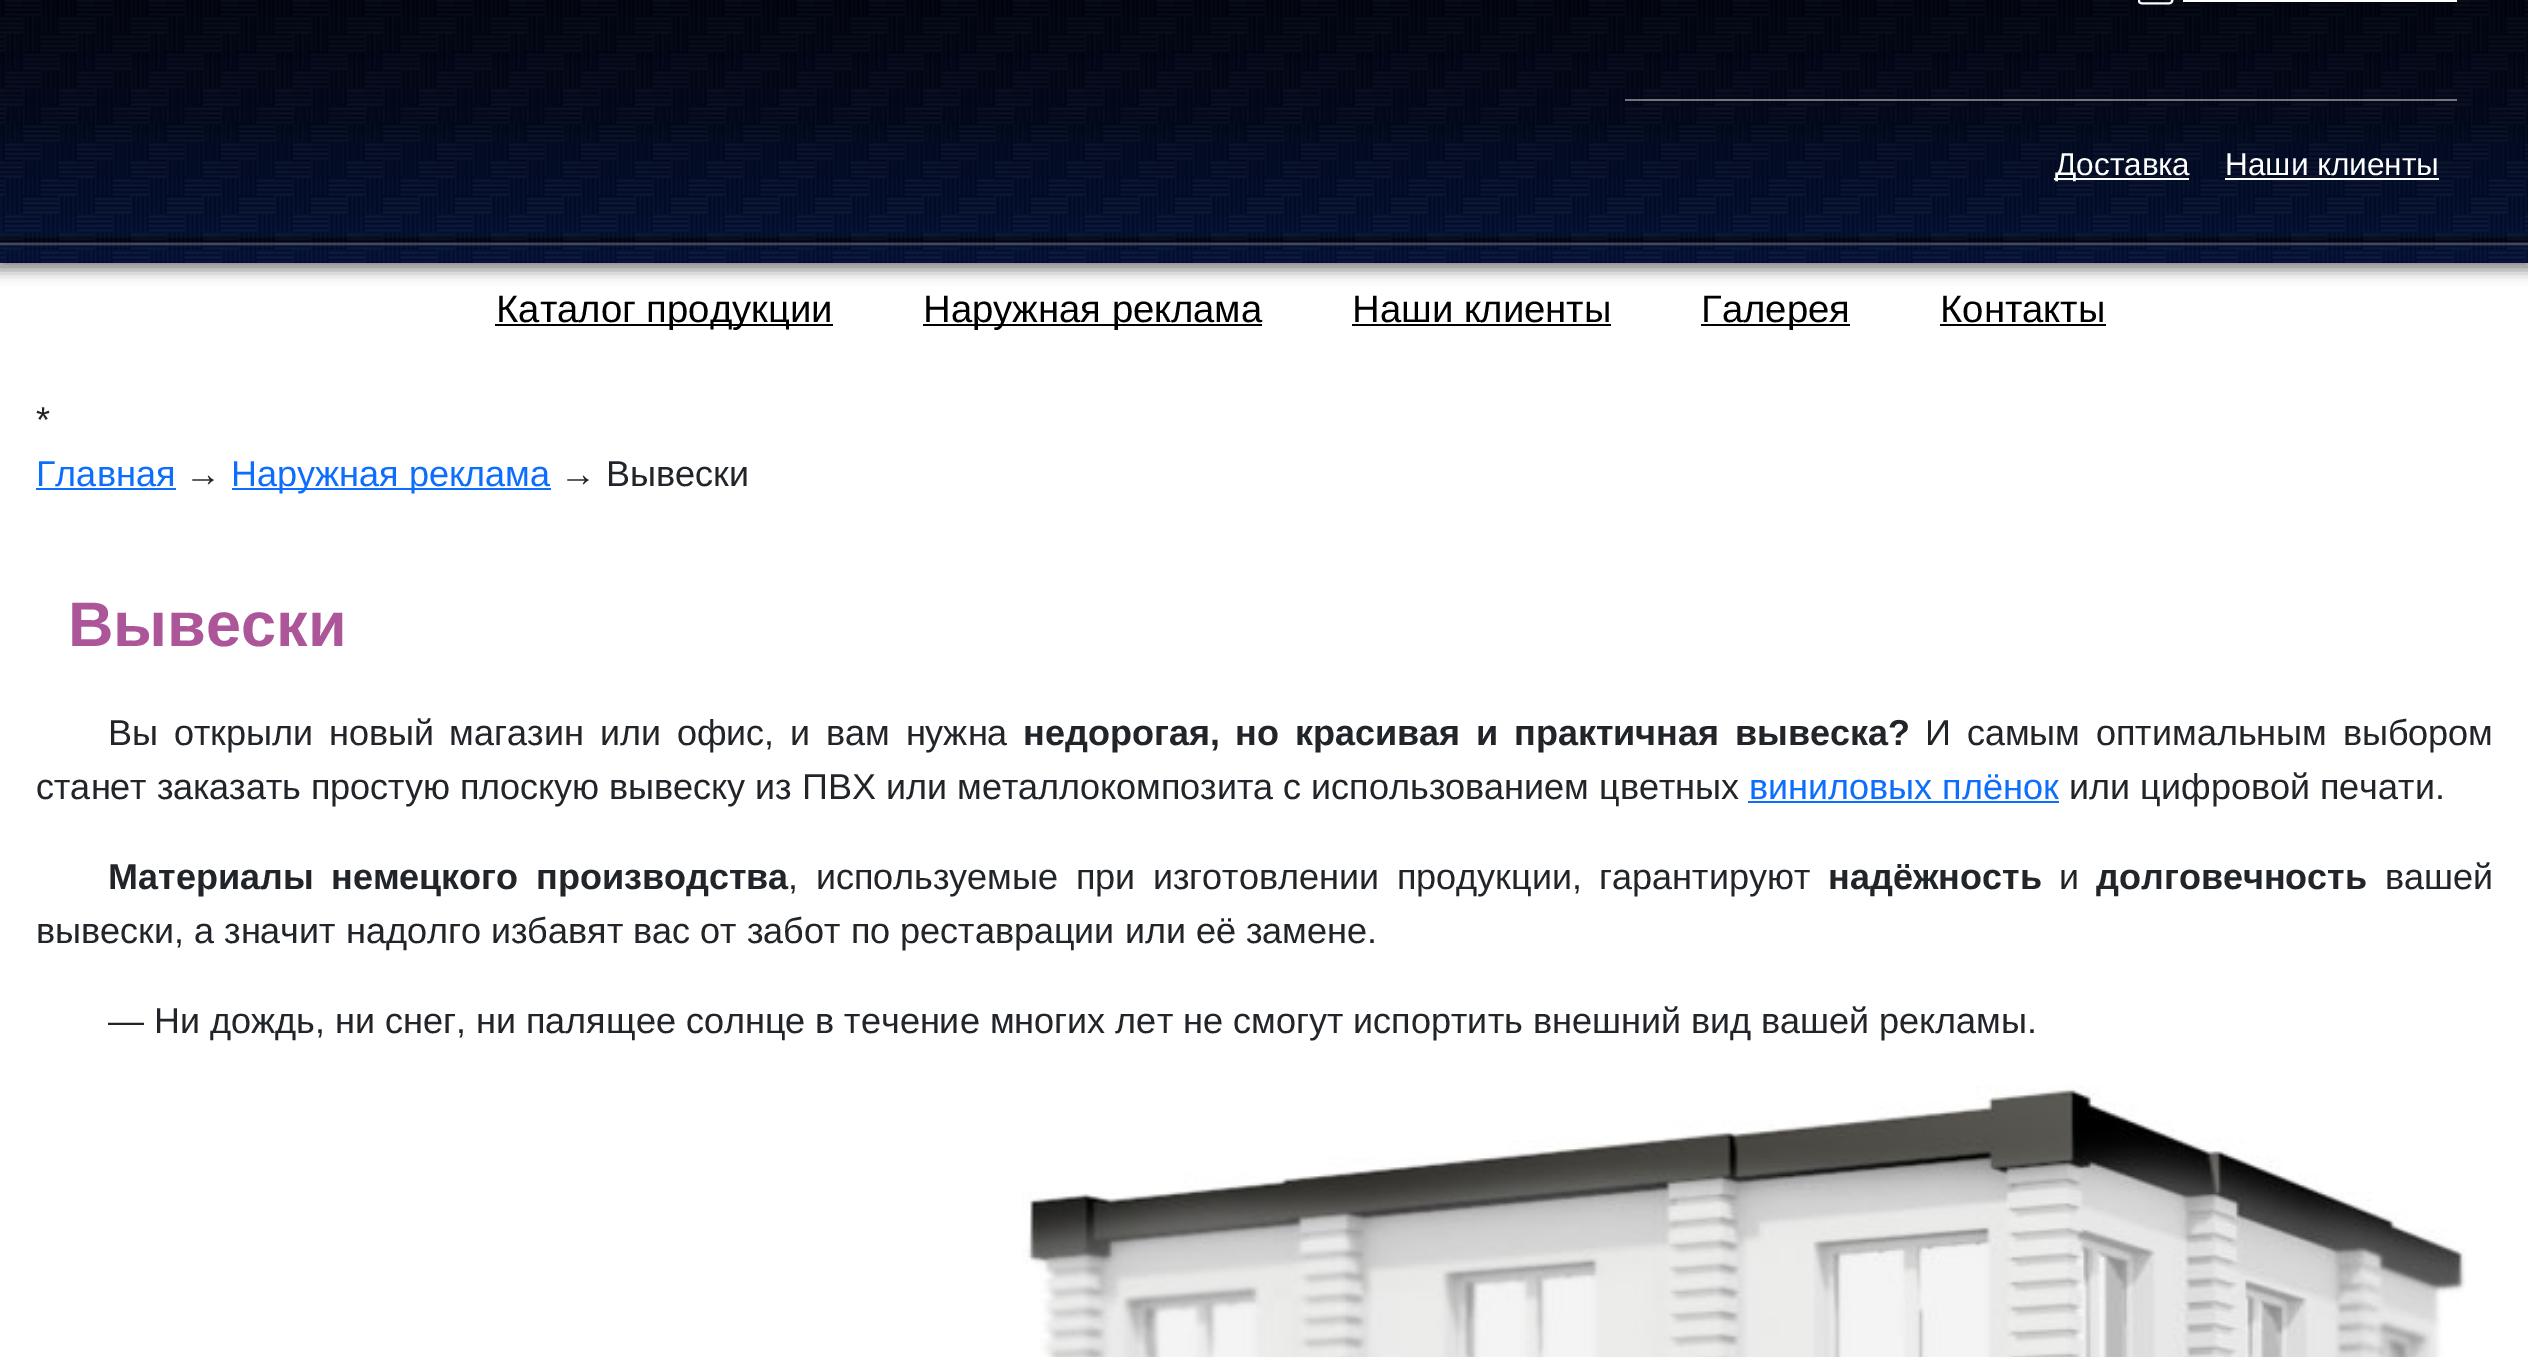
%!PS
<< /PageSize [2528 1357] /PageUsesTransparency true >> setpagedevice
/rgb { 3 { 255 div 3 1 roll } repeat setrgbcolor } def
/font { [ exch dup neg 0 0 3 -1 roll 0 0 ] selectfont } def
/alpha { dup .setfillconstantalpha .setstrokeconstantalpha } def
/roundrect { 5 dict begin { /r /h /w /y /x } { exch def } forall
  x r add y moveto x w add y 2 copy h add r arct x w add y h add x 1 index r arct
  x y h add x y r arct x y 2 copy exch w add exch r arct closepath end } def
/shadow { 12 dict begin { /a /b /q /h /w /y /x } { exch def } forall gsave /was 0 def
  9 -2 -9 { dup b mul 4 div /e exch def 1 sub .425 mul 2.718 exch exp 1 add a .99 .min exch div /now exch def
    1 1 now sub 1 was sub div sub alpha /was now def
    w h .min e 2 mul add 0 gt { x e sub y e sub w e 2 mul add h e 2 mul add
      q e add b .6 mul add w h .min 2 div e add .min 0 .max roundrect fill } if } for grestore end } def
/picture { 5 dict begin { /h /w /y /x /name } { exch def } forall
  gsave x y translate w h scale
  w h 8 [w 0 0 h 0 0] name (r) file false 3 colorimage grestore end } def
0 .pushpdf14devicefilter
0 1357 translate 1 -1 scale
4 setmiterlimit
255 255 255 rgb
0 0 2528 1357 rectfill
0 0 0 rgb
-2 -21 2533 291 0 7 0.47 shadow
(img/1.rgb) 0 0 2528 263 picture
(img/2.rgb) 2138 0 36 5 picture
[
  [2183 0 274 2 255 255 255]
] { aload pop rgb rectfill } forall
0.25 alpha
[
  [1625 99 832 2 255 252 213]
  [1625 99 832 2 255 255 255]
] { aload pop rgb rectfill } forall
1 alpha
[
  [2054 178 135 2 255 255 255]
  [2225 178 214 2 255 255 255]
  [495 324 338 2 0 0 0]
  [923 324 339 2 0 0 0]
  [1352 324 259 2 0 0 0]
  [1701 324 149 2 0 0 0]
  [1940 324 166 2 0 0 0]
  [36 488 140 2 13 110 253]
  [232 488 319 2 13 110 253]
  [1748 801 311 2 13 110 253]
] { aload pop rgb rectfill } forall
(img/3.rgb) 1022 1085 1444 272 picture
/LiberationSans-Regular 31.5 font
255 255 255 rgb
2055 175 moveto (Доставка) show
2225 175 moveto (Наши клиенты) show
/LiberationSans-Regular 38.25 font
0 0 0 rgb
[
  [(Каталог продукции) 496 322]
  [(Наружная реклама) 923 322]
  [(Наши клиенты) 1352 322]
  [(Галерея) 1701 322]
  [(Контакты) 1940 322]
] { aload pop moveto show } forall
/LiberationSans-Regular 36 font
33 37 41 rgb
36 432 moveto (*) show
13 110 253 rgb
36 486 moveto (Главная) show
33 37 41 rgb
185 486 moveto (→) show
13 110 253 rgb
231 486 moveto (Наружная реклама) show
33 37 41 rgb
560 486 moveto (→ Вывески) show
/LiberationSans-Bold 63 font
172 85 152 rgb
68 646 moveto (Вывески) show
/LiberationSans-Regular 36 font
33 37 41 rgb
108 745 moveto 5.75 0 32 (Вы открыли новый магазин или офис, и вам нужна) widthshow
/LiberationSans-Bold 36 font
1023 745 moveto 5.75 0 32 (недорогая, но красивая и практичная вывеска?) widthshow
/LiberationSans-Regular 36 font
1925 745 moveto 5.75 0 32 (И самым оптимальным выбором) widthshow
36 799 moveto (станет заказать простую плоскую вывеску из ПВХ или металлокомпозита с использованием цветных) show
13 110 253 rgb
1749 799 moveto (виниловых плёнок) show
33 37 41 rgb
2069 799 moveto (или цифровой печати.) show
/LiberationSans-Bold 36 font
108 889 moveto 7.5 0 32 (Материалы немецкого производства) widthshow
/LiberationSans-Regular 36 font
788 889 moveto 7.5 0 32 (, используемые при изготовлении продукции, гарантируют) widthshow
/LiberationSans-Bold 36 font
1828 889 moveto (надёжность) show
/LiberationSans-Regular 36 font
2059 889 moveto (и) show
/LiberationSans-Bold 36 font
2096 889 moveto (долговечность) show
/LiberationSans-Regular 36 font
[
  [(вашей) 2385 889]
  [(вывески, а значит надолго избавят вас от забот по реставрации или её замене.) 36 943]
  [(— Ни дождь, ни снег, ни палящее солнце в течение многих лет не смогут испортить внешний вид вашей рекламы.) 108 1033]
] { aload pop moveto show } forall
.poppdf14devicefilter showpage
